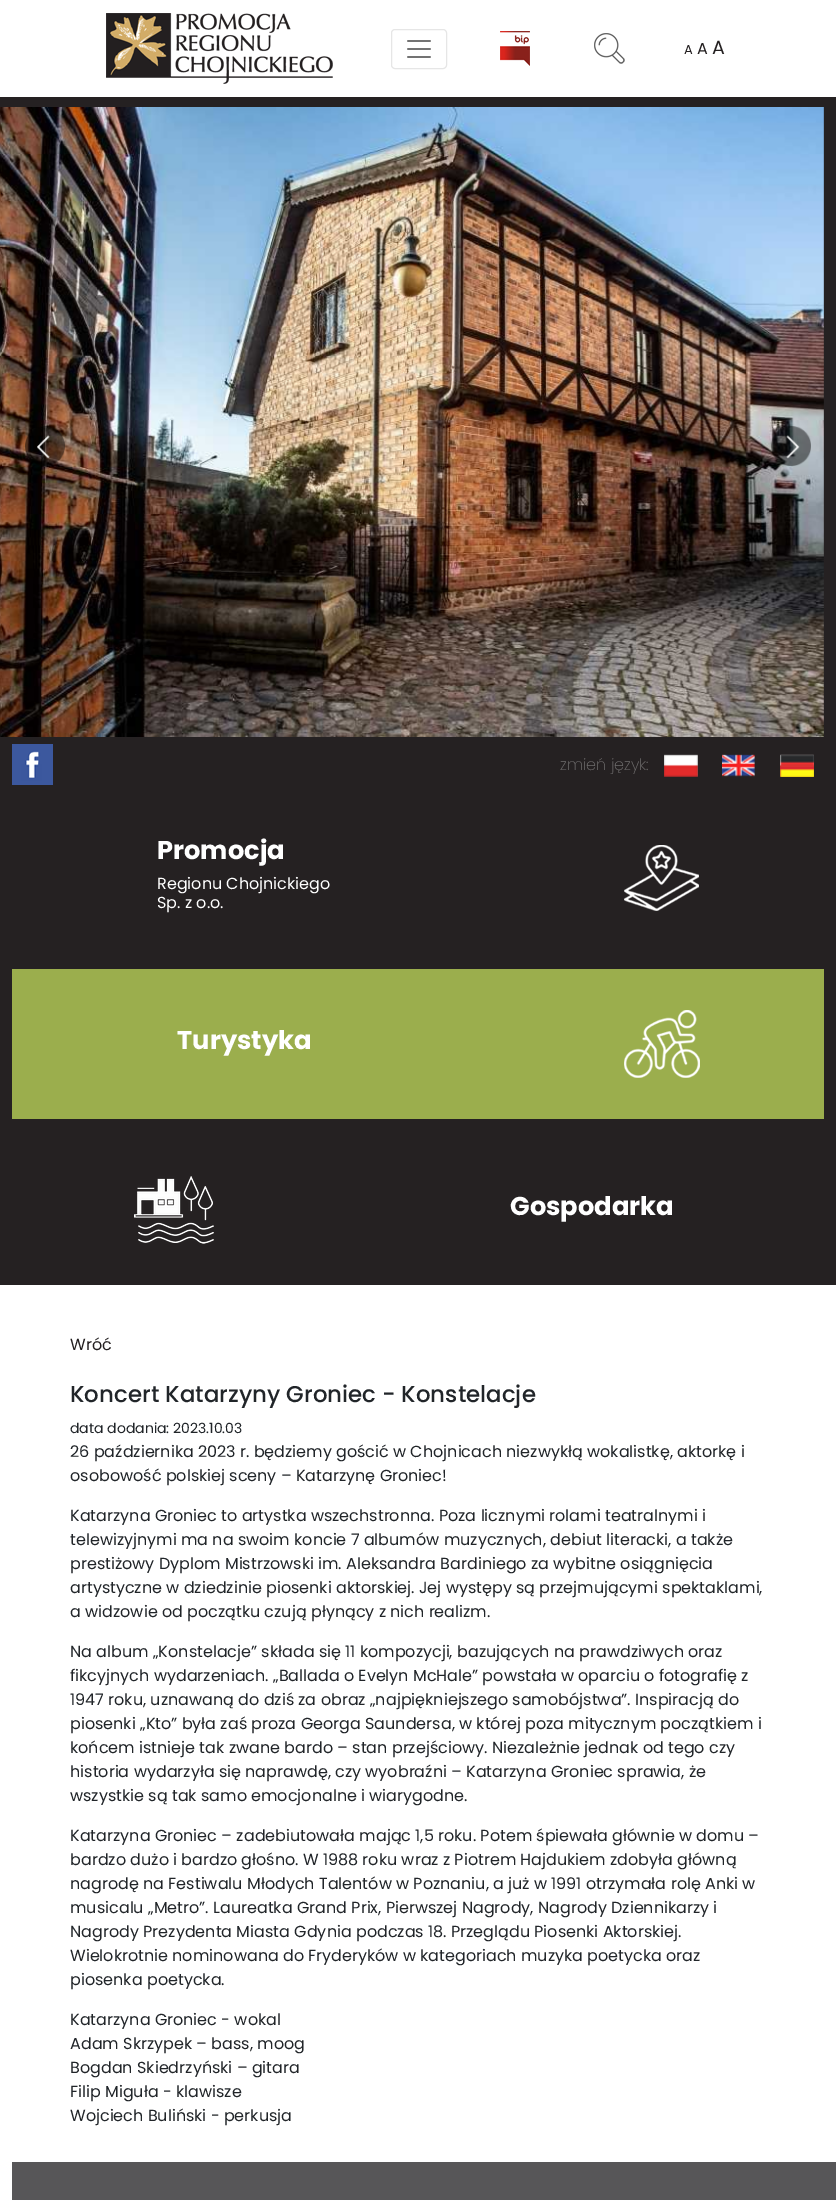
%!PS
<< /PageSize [836 2200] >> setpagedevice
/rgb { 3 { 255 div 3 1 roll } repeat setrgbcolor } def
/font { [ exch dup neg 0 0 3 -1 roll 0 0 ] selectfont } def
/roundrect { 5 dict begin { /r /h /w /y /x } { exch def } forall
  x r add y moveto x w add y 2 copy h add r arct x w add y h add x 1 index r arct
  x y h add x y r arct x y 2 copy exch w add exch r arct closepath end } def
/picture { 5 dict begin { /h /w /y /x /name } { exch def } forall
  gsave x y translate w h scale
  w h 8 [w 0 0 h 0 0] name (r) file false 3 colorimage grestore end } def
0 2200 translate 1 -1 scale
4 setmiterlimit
255 255 255 rgb
0 0 836 2200 rectfill
(img/1.rgb) 106 13 227 71 picture
230 230 230 rgb
391.5 29.5 55 39 3.5 roundrect stroke
(img/2.rgb) 407 40 24 18 picture
(img/3.rgb) 500 31 30 35 picture
(img/4.rgb) 594 33 31 31 picture
37 33 34 rgb
0 97 836 1188 rectfill
(img/5.rgb) 0 107 824 630 picture
(img/6.rgb) 25 426 40 40 picture
(img/7.rgb) 770 426 41 40 picture
(img/8.rgb) 12 744 41 41 picture
(img/9.rgb) 664 754 34 23 picture
(img/10.rgb) 722 754 33 23 picture
(img/11.rgb) 780 754 34 23 picture
(img/12.rgb) 624 845 75 66 picture
155 174 77 rgb
12 969 812 150 rectfill
(img/13.rgb) 624 1010 76 68 picture
(img/14.rgb) 134 1176 80 68 picture
87 86 88 rgb
12 2162 824 38 rectfill
/Poppins-Regular 13 font
35 31 32 rgb
684 54 moveto (A) show
/Poppins-Regular 16 font
697 54 moveto (A) show
/Poppins-Regular 19 font
712 54 moveto (A) show
/Poppins-ExtraLight 16 font
113 111 111 rgb
560 770 moveto (zmień język:) show
/Poppins-Bold 25.75 font
255 255 255 rgb
157 859 moveto (Promocja) show
/Poppins-Regular 16 font
157 889 moveto (Regionu Chojnickiego) show
157 908 moveto (Sp. z o.o.) show
/Poppins-Bold 25.75 font
177 1049 moveto (Turystyka) show
510 1215 moveto (Gospodarka) show
/Poppins-Regular 16 font
35 31 32 rgb
70 1350 moveto (Wróć) show
/Poppins-Medium 22.9 font
33 37 41 rgb
70 1402 moveto (Koncert Katarzyny Groniec - Konstelacje) show
/Poppins-Regular 14 font
70 1433 moveto (data dodania: 2023.10.03) show
/Poppins-Regular 16 font
[
  [(26 października 2023 r. będziemy gościć w Chojnicach niezwykłą wokalistkę, aktorkę i) 70 1457]
  [(osobowość polskiej sceny – Katarzynę Groniec!) 70 1481]
  [(Katarzyna Groniec to artystka wszechstronna. Poza licznymi rolami teatralnymi i) 70 1521]
  [(telewizyjnymi ma na swoim koncie 7 albumów muzycznych, debiut literacki, a także) 70 1545]
  [(prestiżowy Dyplom Mistrzowski im. Aleksandra Bardiniego za wybitne osiągnięcia) 70 1569]
  [(artystyczne w dziedzinie piosenki aktorskiej. Jej występy są przejmującymi spektaklami,) 70 1593]
  [(a widzowie od początku czują płynący z nich realizm.) 70 1617]
  [(Na album „Konstelacje” składa się 11 kompozycji, bazujących na prawdziwych oraz) 70 1657]
  [(fikcyjnych wydarzeniach. „Ballada o Evelyn McHale” powstała w oparciu o fotografię z) 70 1681]
  [(1947 roku, uznawaną do dziś za obraz „najpiękniejszego samobójstwa”. Inspiracją do) 70 1705]
  [(piosenki „Kto” była zaś proza Georga Saundersa, w której poza mitycznym początkiem i) 70 1729]
  [(końcem istnieje tak zwane bardo – stan przejściowy. Niezależnie jednak od tego czy) 70 1753]
  [(historia wydarzyła się naprawdę, czy wyobraźni – Katarzyna Groniec sprawia, że) 70 1777]
  [(wszystkie są tak samo emocjonalne i wiarygodne.) 70 1801]
  [(Katarzyna Groniec – zadebiutowała mając 1,5 roku. Potem śpiewała głównie w domu –) 70 1841]
  [(bardzo dużo i bardzo głośno. W 1988 roku wraz z Piotrem Hajdukiem zdobyła główną) 70 1865]
  [(nagrodę na Festiwalu Młodych Talentów w Poznaniu, a już w 1991 otrzymała rolę Anki w) 70 1889]
  [(musicalu „Metro”. Laureatka Grand Prix, Pierwszej Nagrody, Nagrody Dziennikarzy i) 70 1913]
  [(Nagrody Prezydenta Miasta Gdynia podczas 18. Przeglądu Piosenki Aktorskiej.) 70 1937]
  [(Wielokrotnie nominowana do Fryderyków w kategoriach muzyka poetycka oraz) 70 1961]
  [(piosenka poetycka.) 70 1985]
  [(Katarzyna Groniec - wokal) 70 2025]
  [(Adam Skrzypek – bass, moog) 70 2049]
  [(Bogdan Skiedrzyński – gitara) 70 2073]
  [(Filip Miguła - klawisze) 70 2097]
  [(Wojciech Buliński - perkusja) 70 2121]
] { aload pop moveto show } forall
showpage
